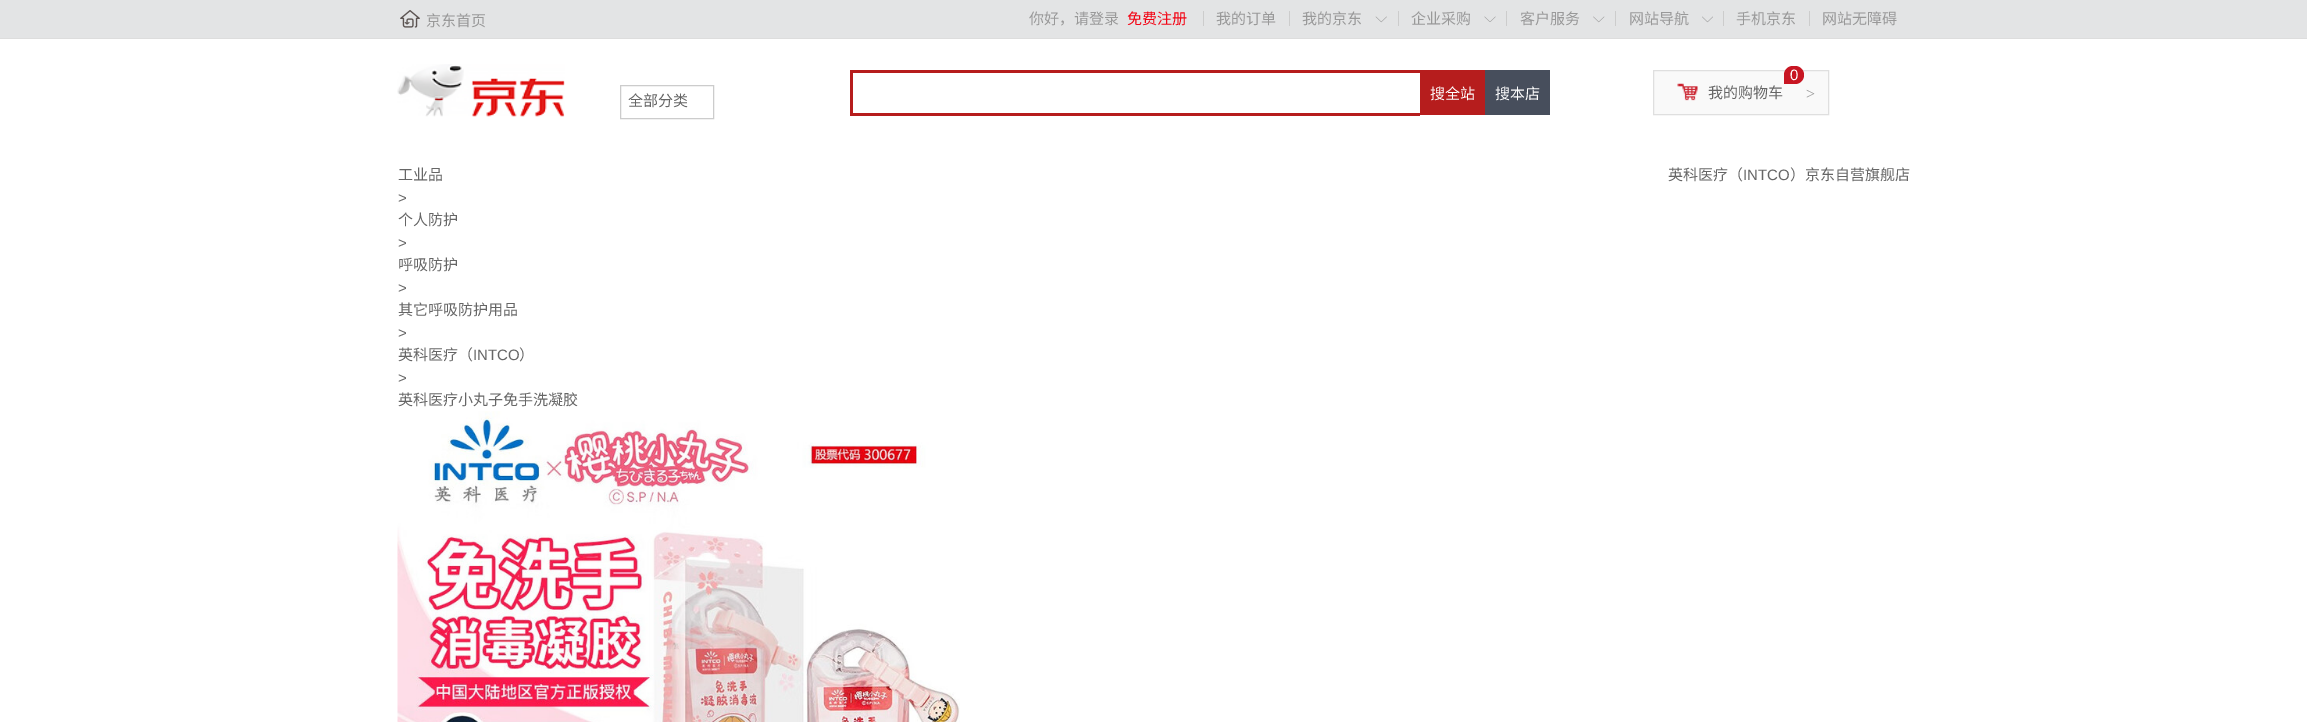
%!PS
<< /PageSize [2307 722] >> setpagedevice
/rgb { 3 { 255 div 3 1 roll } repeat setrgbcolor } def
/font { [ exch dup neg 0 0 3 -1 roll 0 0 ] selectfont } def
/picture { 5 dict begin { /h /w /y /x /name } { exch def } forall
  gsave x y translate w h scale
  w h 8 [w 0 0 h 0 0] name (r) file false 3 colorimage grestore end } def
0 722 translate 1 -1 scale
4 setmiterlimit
255 255 255 rgb
0 0 2307 722 rectfill
227 228 229 rgb
0 0 2307 38 rectfill
221 221 221 rgb
0 38 2307 1 rectfill
(img/1.rgb) 400 10 20 18 picture
204 204 204 rgb
1203 11 1 15 rectfill
1289 11 1 15 rectfill
(img/2.rgb) 1375 16 12 7 picture
1398 11 1 15 rectfill
(img/3.rgb) 1484 16 12 6 picture
1506 11 1 15 rectfill
(img/4.rgb) 1593 16 12 7 picture
1615 11 1 15 rectfill
(img/5.rgb) 1702 16 11 7 picture
1723 11 1 15 rectfill
1809 11 1 15 rectfill
(img/6.rgb) 397 64 168 53 picture
620.5 85.5 93 33 rectstroke
[
  [850 70 570 3 182 29 29]
  [850 113 570 3 182 29 29]
  [850 70 3 45 182 29 29]
  [1420 70 65 45 182 29 29]
  [1485 70 65 45 71 78 92]
] { aload pop rgb rectfill } forall
249 249 249 rgb
1653.5 70.5 moveto 1828.5 70.5 lineto 1828.5 114.5 lineto 1653.5 114.5 lineto closepath gsave fill grestore
223 223 223 rgb
stroke
200 22 35 rgb
1793 66 moveto 1795 66 lineto 1800 66 1804 70 1804 75 curveto 1804 80 1800 84 1795 84 curveto 1784 84 lineto 1784 75 lineto 1784 70 1788 66 1793 66 curveto closepath fill
(img/7.rgb) 1677 83 21 18 picture
(img/8.rgb) 397 411 563 311 picture
/NotoSansCJKSC-Regular 15 font
153 153 153 rgb
426 26 moveto (京东首页) show
1029 24 moveto (你好，请登录) show
243 2 19 rgb
1127 24 moveto (免费注册) show
153 153 153 rgb
[
  [(我的订单) 1216 24]
  [(我的京东) 1302 24]
  [(企业采购) 1411 24]
  [(客户服务) 1520 24]
  [(网站导航) 1629 24]
  [(手机京东) 1736 24]
  [(网站无障碍) 1822 24]
] { aload pop moveto show } forall
102 102 102 rgb
628 106 moveto (全部分类) show
255 255 255 rgb
1430 99 moveto (搜全站) show
1495 99 moveto (搜本店) show
/LiberationSans-Regular 15 font
1790 80 moveto (0) show
/NotoSansCJKSC-Regular 15 font
102 102 102 rgb
1708 98 moveto (我的购物车) show
/LiberationSerif-Regular 16 font
153 153 153 rgb
1806 99 moveto (>) show
/NotoSansCJKSC-Regular 15 font
102 102 102 rgb
398 180 moveto (工业品) show
/LiberationSans-Regular 15 font
398 203 moveto (>) show
/NotoSansCJKSC-Regular 15 font
398 225 moveto (个人防护) show
/LiberationSans-Regular 15 font
398 248 moveto (>) show
/NotoSansCJKSC-Regular 15 font
398 270 moveto (呼吸防护) show
/LiberationSans-Regular 15 font
398 293 moveto (>) show
/NotoSansCJKSC-Regular 15 font
398 315 moveto (其它呼吸防护用品) show
/LiberationSans-Regular 15 font
398 338 moveto (>) show
/NotoSansCJKSC-Regular 15 font
398 360 moveto (英科医疗（) show
/LiberationSans-Regular 15 font
473 360 moveto (INTCO) show
/NotoSansCJKSC-Regular 15 font
519 360 moveto (）) show
/LiberationSans-Regular 15 font
398 383 moveto (>) show
/NotoSansCJKSC-Regular 15 font
398 405 moveto (英科医疗小丸子免手洗凝胶) show
1668 180 moveto (英科医疗（) show
/LiberationSans-Regular 15 font
1743 180 moveto (INTCO) show
/NotoSansCJKSC-Regular 15 font
1790 180 moveto (）京东自营旗舰店) show
showpage
